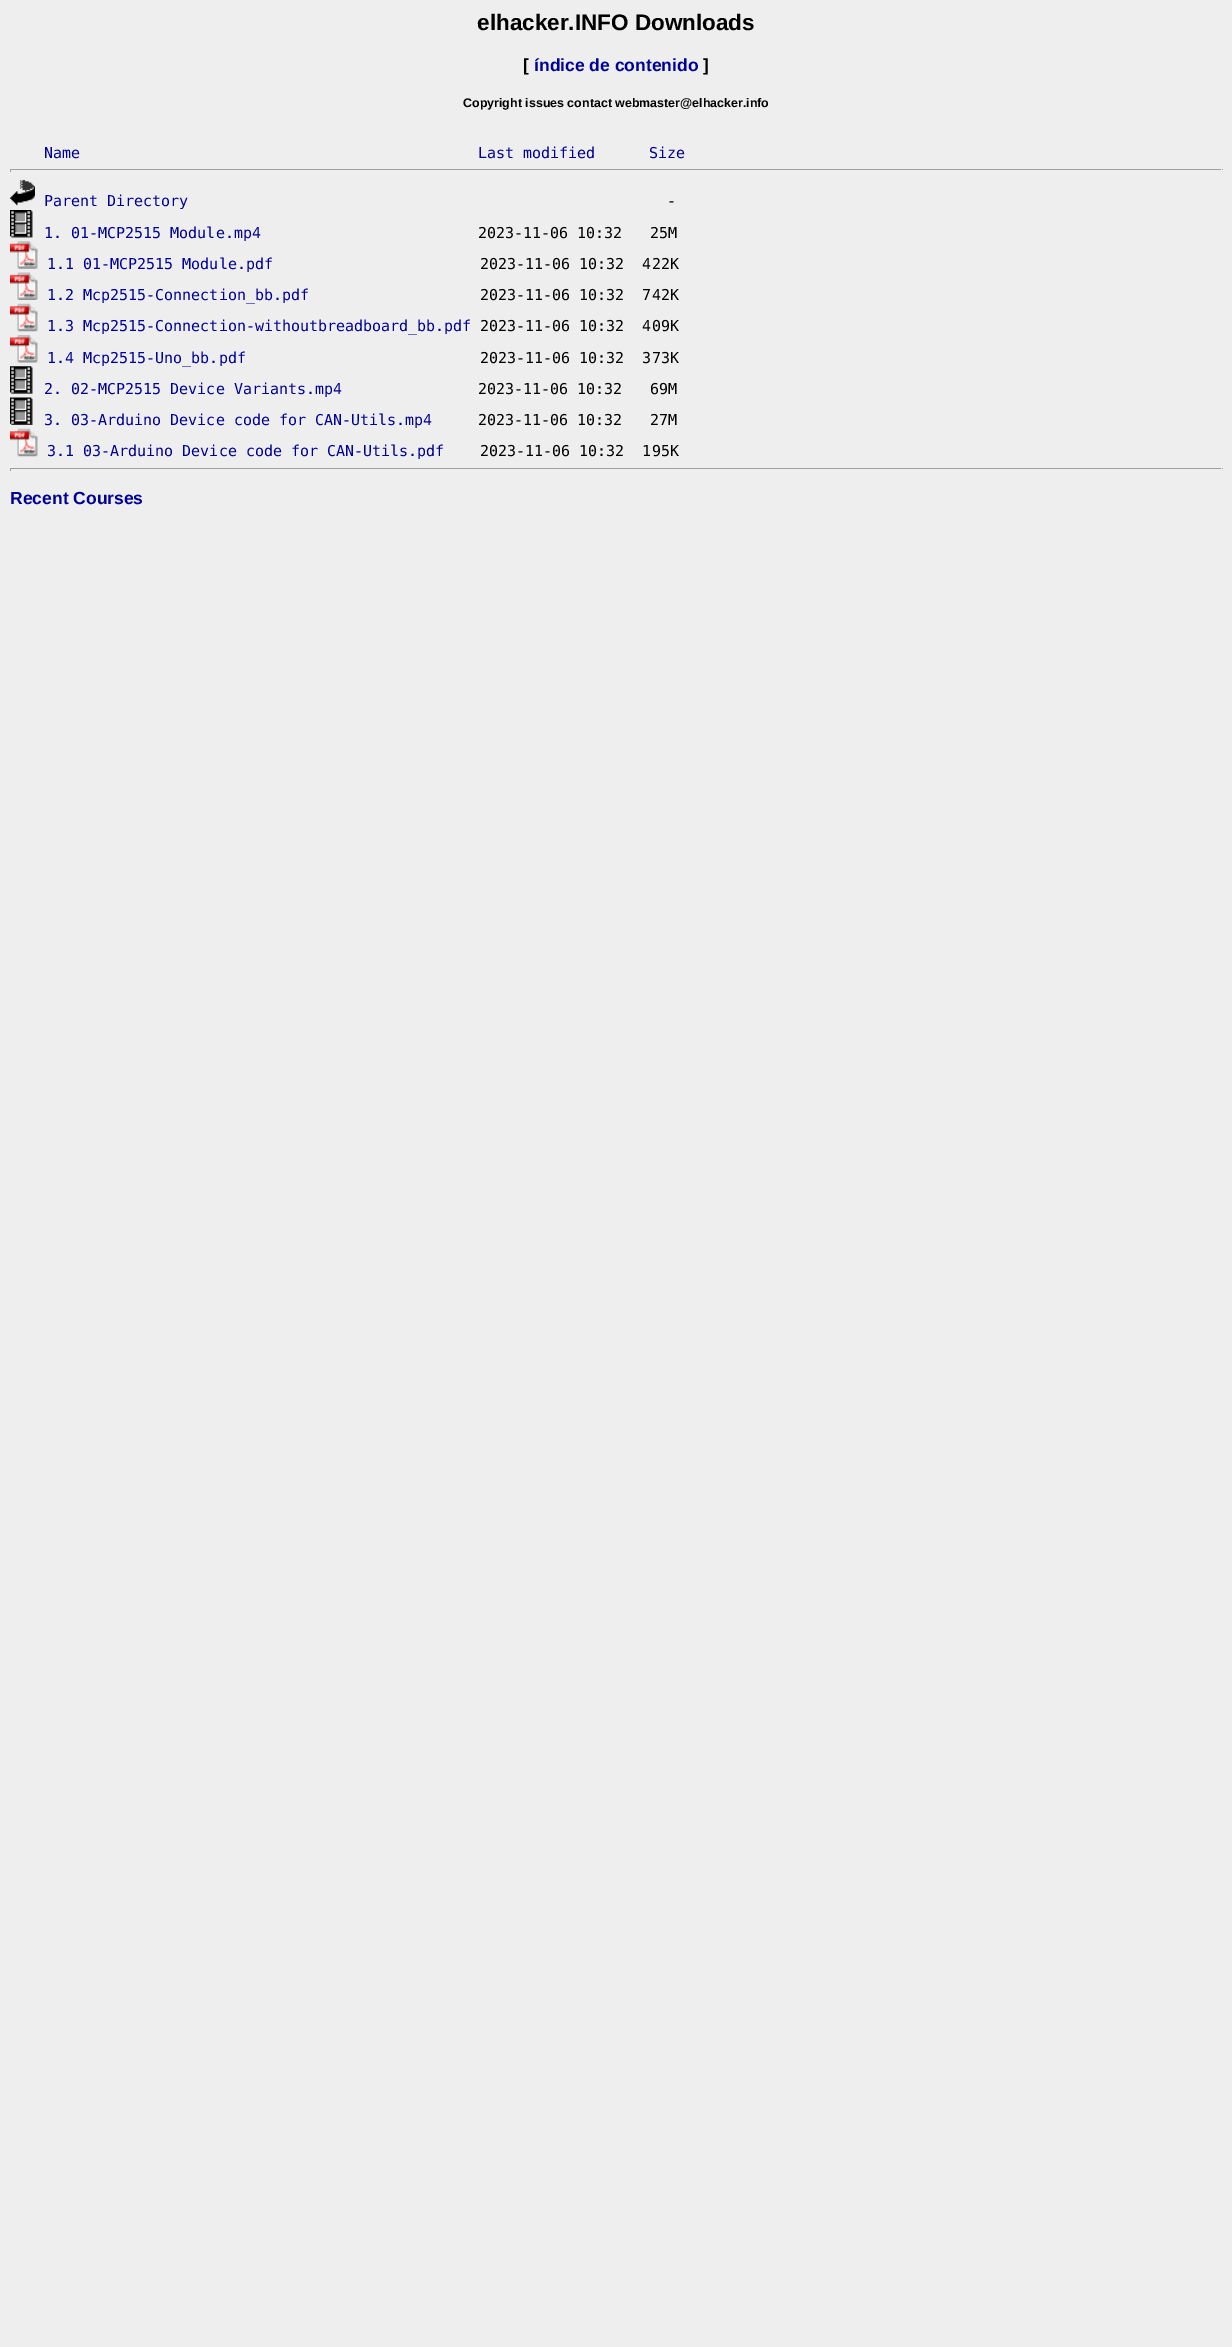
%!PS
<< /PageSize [1232 2347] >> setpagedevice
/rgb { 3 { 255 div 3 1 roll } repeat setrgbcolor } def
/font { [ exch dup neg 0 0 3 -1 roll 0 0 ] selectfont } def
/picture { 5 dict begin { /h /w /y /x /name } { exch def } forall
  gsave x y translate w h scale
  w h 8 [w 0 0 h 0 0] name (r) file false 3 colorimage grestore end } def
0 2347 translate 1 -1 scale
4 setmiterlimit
238 238 238 rgb
0 0 1232 2347 rectfill
[
  [10 169 1213 1 159 159 159]
  [1221 169 1 3 238 238 238]
  [10 169 1 3 159 159 159]
] { aload pop rgb rectfill } forall
(img/1.rgb) 10 179 25 27 picture
(img/2.rgb) 10 210 23 28 picture
(img/3.rgb) 10 241 28 28 picture
(img/4.rgb) 10 272 28 28 picture
(img/5.rgb) 10 303 28 29 picture
(img/6.rgb) 10 335 28 28 picture
(img/7.rgb) 10 366 23 28 picture
(img/8.rgb) 10 397 23 28 picture
(img/5.rgb) 10 428 28 29 picture
[
  [10 468 1213 1 159 159 159]
  [1221 468 1 3 238 238 238]
  [10 468 1 3 159 159 159]
] { aload pop rgb rectfill } forall
/LiberationSans-Bold 22.5 font
0 0 0 rgb
477 30 moveto (elhacker.INFO Downloads) show
/LiberationSans-Bold 17.5 font
523 71 moveto ([) show
0 0 153 rgb
534 71 moveto (índice de contenido) show
0 0 0 rgb
703 71 moveto (]) show
/LiberationSans-Bold 12.45 font
463 107 moveto (Copyright issues contact webmaster@elhacker.info) show
/DejaVuSansMono-Regular 15 font
0 0 153 rgb
[
  [(Name) 44 158]
  [(Last modified) 478 158]
  [(Size) 649 158]
  [(Parent Directory) 44 206]
] { aload pop moveto show } forall
0 0 0 rgb
667 206 moveto (-) show
0 0 153 rgb
44 238 moveto (1. 01-MCP2515 Module.mp4) show
0 0 0 rgb
478 238 moveto (2023-11-06 10:32   25M) show
0 0 153 rgb
47 269 moveto (1.1 01-MCP2515 Module.pdf) show
0 0 0 rgb
480 269 moveto (2023-11-06 10:32  422K) show
0 0 153 rgb
47 300 moveto (1.2 Mcp2515-Connection_bb.pdf) show
0 0 0 rgb
480 300 moveto (2023-11-06 10:32  742K) show
0 0 153 rgb
47 331 moveto (1.3 Mcp2515-Connection-withoutbreadboard_bb.pdf) show
0 0 0 rgb
480 331 moveto (2023-11-06 10:32  409K) show
0 0 153 rgb
47 363 moveto (1.4 Mcp2515-Uno_bb.pdf) show
0 0 0 rgb
480 363 moveto (2023-11-06 10:32  373K) show
0 0 153 rgb
44 394 moveto (2. 02-MCP2515 Device Variants.mp4) show
0 0 0 rgb
478 394 moveto (2023-11-06 10:32   69M) show
0 0 153 rgb
44 425 moveto (3. 03-Arduino Device code for CAN-Utils.mp4) show
0 0 0 rgb
478 425 moveto (2023-11-06 10:32   27M) show
0 0 153 rgb
47 456 moveto (3.1 03-Arduino Device code for CAN-Utils.pdf) show
0 0 0 rgb
480 456 moveto (2023-11-06 10:32  195K) show
/LiberationSans-Bold 17.5 font
0 0 153 rgb
10 504 moveto (Recent Courses) show
showpage
